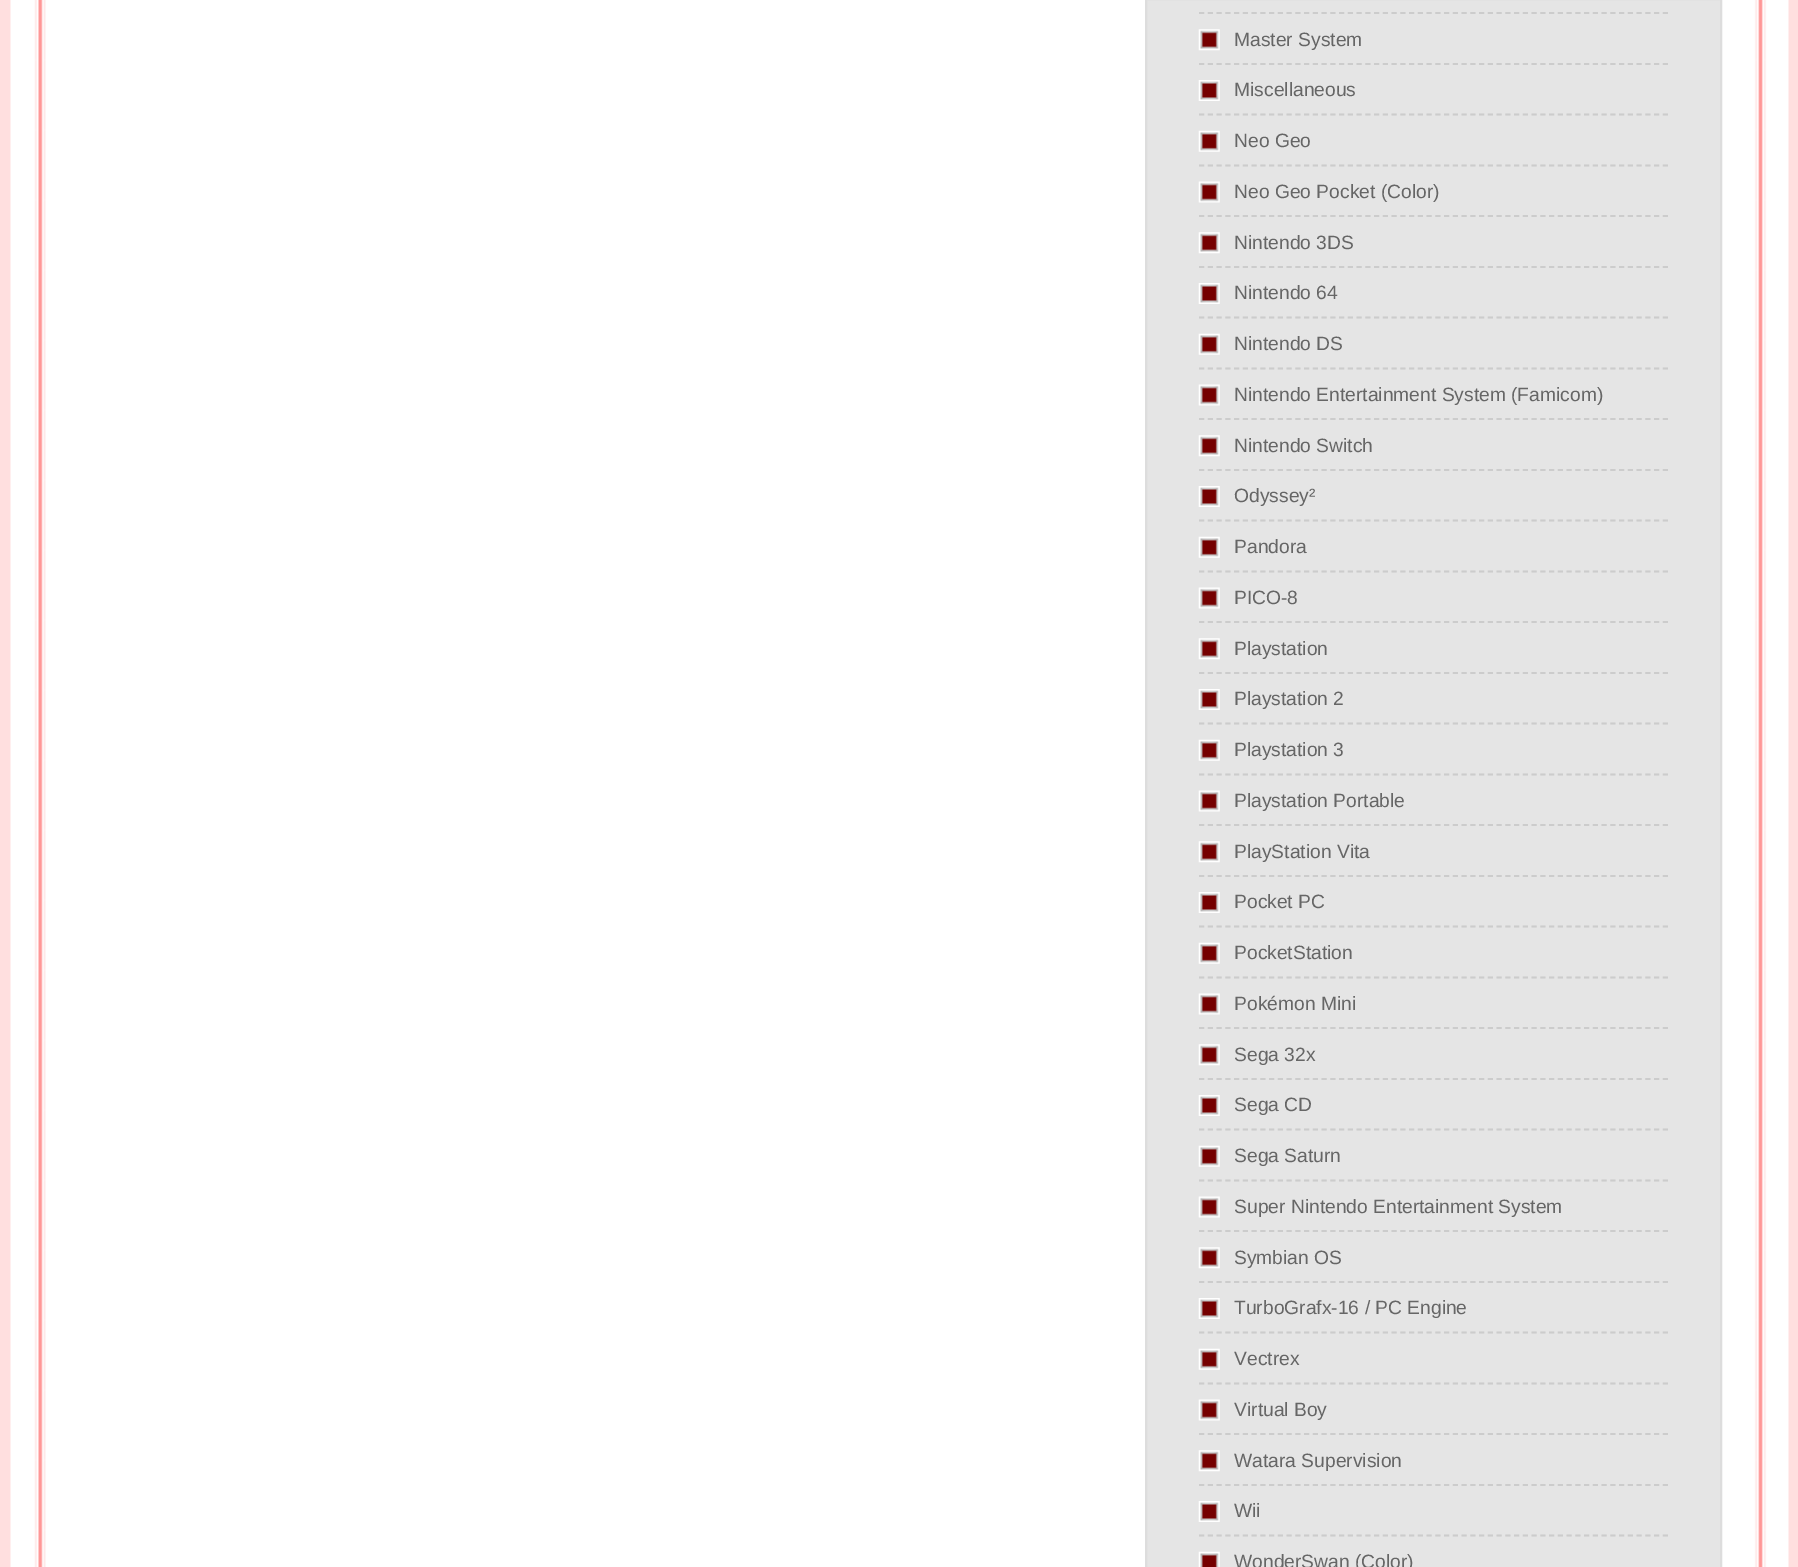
%!PS
<< /PageSize [1798 1567] >> setpagedevice
/rgb { 3 { 255 div 3 1 roll } repeat setrgbcolor } def
/font { [ exch dup neg 0 0 3 -1 roll 0 0 ] selectfont } def
/picture { 5 dict begin { /h /w /y /x /name } { exch def } forall
  gsave x y translate w h scale
  w h 8 [w 0 0 h 0 0] name (r) file false 3 colorimage grestore end } def
0 1567 translate 1 -1 scale
4 setmiterlimit
255 255 255 rgb
0 0 1798 1567 rectfill
(img/1.rgb) 0 0 1798 1567 picture
229 229 229 rgb
1146 -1 moveto 1721 -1 lineto 1721 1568 lineto 1146 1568 lineto closepath gsave fill grestore
221 221 221 rgb
2 setlinewidth
stroke
204 204 204 rgb
1.8 setlinewidth
[5.25 3.5] 0 setdash
1199 13 moveto 1668 13 lineto stroke
(img/2.rgb) 1198 29 22 22 picture
1199 64 moveto 1668 64 lineto stroke
(img/3.rgb) 1198 80 22 21 picture
1199 114.5 moveto 1668 114.5 lineto stroke
(img/4.rgb) 1198 130 22 22 picture
1199 165.5 moveto 1668 165.5 lineto stroke
(img/5.rgb) 1198 181 22 22 picture
1199 216 moveto 1668 216 lineto stroke
(img/2.rgb) 1198 232 22 22 picture
1199 267 moveto 1668 267 lineto stroke
(img/3.rgb) 1198 283 22 21 picture
1199 317.5 moveto 1668 317.5 lineto stroke
(img/4.rgb) 1198 333 22 22 picture
1199 368.5 moveto 1668 368.5 lineto stroke
(img/5.rgb) 1198 384 22 22 picture
1199 419 moveto 1668 419 lineto stroke
(img/2.rgb) 1198 435 22 22 picture
1199 470 moveto 1668 470 lineto stroke
(img/3.rgb) 1198 486 22 21 picture
1199 520.5 moveto 1668 520.5 lineto stroke
(img/4.rgb) 1198 536 22 22 picture
1199 571.5 moveto 1668 571.5 lineto stroke
(img/5.rgb) 1198 587 22 22 picture
1199 622 moveto 1668 622 lineto stroke
(img/2.rgb) 1198 638 22 22 picture
1199 673 moveto 1668 673 lineto stroke
(img/3.rgb) 1198 689 22 21 picture
1199 723.5 moveto 1668 723.5 lineto stroke
(img/4.rgb) 1198 739 22 22 picture
1199 774.5 moveto 1668 774.5 lineto stroke
(img/5.rgb) 1198 790 22 22 picture
1199 825 moveto 1668 825 lineto stroke
(img/2.rgb) 1198 841 22 22 picture
1199 876 moveto 1668 876 lineto stroke
(img/3.rgb) 1198 892 22 21 picture
1199 926.5 moveto 1668 926.5 lineto stroke
(img/4.rgb) 1198 942 22 22 picture
1199 977.5 moveto 1668 977.5 lineto stroke
(img/5.rgb) 1198 993 22 22 picture
1199 1028 moveto 1668 1028 lineto stroke
(img/2.rgb) 1198 1044 22 22 picture
1199 1079 moveto 1668 1079 lineto stroke
(img/3.rgb) 1198 1095 22 21 picture
1199 1129.5 moveto 1668 1129.5 lineto stroke
(img/4.rgb) 1198 1145 22 22 picture
1199 1180.5 moveto 1668 1180.5 lineto stroke
(img/5.rgb) 1198 1196 22 22 picture
1199 1231 moveto 1668 1231 lineto stroke
(img/2.rgb) 1198 1247 22 22 picture
1199 1282 moveto 1668 1282 lineto stroke
(img/3.rgb) 1198 1298 22 21 picture
1199 1332.5 moveto 1668 1332.5 lineto stroke
(img/4.rgb) 1198 1348 22 22 picture
1199 1383.5 moveto 1668 1383.5 lineto stroke
(img/5.rgb) 1198 1399 22 22 picture
1199 1434 moveto 1668 1434 lineto stroke
(img/2.rgb) 1198 1450 22 22 picture
1199 1485 moveto 1668 1485 lineto stroke
(img/3.rgb) 1198 1501 22 21 picture
1199 1535.5 moveto 1668 1535.5 lineto stroke
(img/6.rgb) 1198 1551 22 16 picture
/LiberationSans-Regular 19.25 font
102 102 102 rgb
[
  [(Master System) 1234 46]
  [(Miscellaneous) 1234 96]
  [(Neo Geo) 1234 147]
  [(Neo Geo Pocket \(Color\)) 1234 198]
  [(Nintendo 3DS) 1234 249]
  [(Nintendo 64) 1234 299]
  [(Nintendo DS) 1234 350]
  [(Nintendo Entertainment System \(Famicom\)) 1234 401]
  [(Nintendo Switch) 1234 452]
  [(Odyssey²) 1234 502]
  [(Pandora) 1234 553]
  [(PICO-8) 1234 604]
  [(Playstation) 1234 655]
  [(Playstation 2) 1234 705]
  [(Playstation 3) 1234 756]
  [(Playstation Portable) 1234 807]
  [(PlayStation Vita) 1234 858]
  [(Pocket PC) 1234 908]
  [(PocketStation) 1234 959]
  [(Pokémon Mini) 1234 1010]
  [(Sega 32x) 1234 1061]
  [(Sega CD) 1234 1111]
  [(Sega Saturn) 1234 1162]
  [(Super Nintendo Entertainment System) 1234 1213]
  [(Symbian OS) 1234 1264]
  [(TurboGrafx-16 / PC Engine) 1234 1314]
  [(Vectrex) 1234 1365]
  [(Virtual Boy) 1234 1416]
  [(Watara Supervision) 1234 1467]
  [(Wii) 1234 1517]
  [(WonderSwan \(Color\)) 1234 1568]
] { aload pop moveto show } forall
showpage
